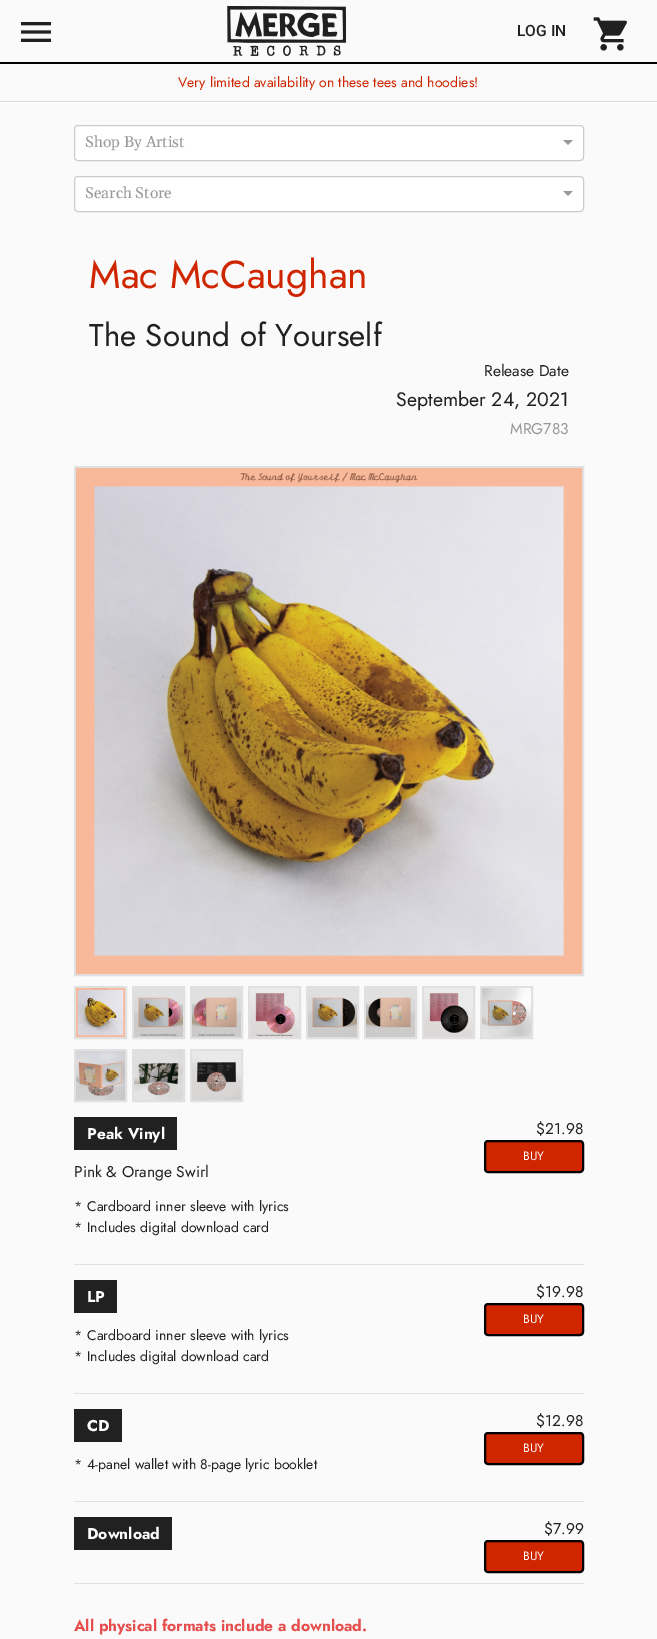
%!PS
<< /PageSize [657 1639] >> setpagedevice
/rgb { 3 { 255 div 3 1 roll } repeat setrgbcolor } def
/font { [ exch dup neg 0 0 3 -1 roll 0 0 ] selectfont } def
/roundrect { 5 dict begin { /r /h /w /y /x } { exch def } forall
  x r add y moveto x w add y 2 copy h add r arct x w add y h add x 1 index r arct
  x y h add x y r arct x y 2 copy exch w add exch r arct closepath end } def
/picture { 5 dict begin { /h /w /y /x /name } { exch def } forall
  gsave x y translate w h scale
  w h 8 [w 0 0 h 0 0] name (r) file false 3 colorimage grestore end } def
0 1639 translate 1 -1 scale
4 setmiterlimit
255 255 255 rgb
0 0 657 1639 rectfill
250 250 250 rgb
0 0 657 62 rectfill
0 0 0 rgb
0 62 657 2 rectfill
(img/1.rgb) 21 22 30 20 picture
(img/2.rgb) 227 6 119 50 picture
(img/3.rgb) 593 17 34 34 picture
[
  [0 101 657 1 217 217 217]
  [0 64 657 37 250 250 250]
  [0 103 657 1536 250 250 250]
] { aload pop rgb rectfill } forall
255 255 255 rgb
74.5 125.5 509 35 3.5 roundrect gsave fill grestore
204 204 204 rgb
stroke
153 153 153 rgb
563 140 moveto 573 140 lineto 568 145 lineto closepath fill
255 255 255 rgb
74.5 176.5 509 35 3.5 roundrect gsave fill grestore
204 204 204 rgb
stroke
153 153 153 rgb
563 191 moveto 573 191 lineto 568 196 lineto closepath fill
224 224 224 rgb
2 setlinewidth
75 467 508 508 rectstroke
(img/4.rgb) 76 468 506 506 picture
75 987 51 51 rectstroke
(img/5.rgb) 76 988 49 49 picture
133 987 51 51 rectstroke
(img/6.rgb) 134 988 49 49 picture
191 987 51 51 rectstroke
(img/7.rgb) 192 988 49 49 picture
249 987 51 51 rectstroke
(img/8.rgb) 250 988 49 49 picture
307 987 51 51 rectstroke
(img/9.rgb) 308 988 49 49 picture
365 987 51 51 rectstroke
(img/10.rgb) 366 988 49 49 picture
423 987 51 51 rectstroke
(img/11.rgb) 424 988 49 49 picture
481 987 51 51 rectstroke
(img/12.rgb) 482 988 49 49 picture
75 1050 51 51 rectstroke
(img/13.rgb) 76 1051 49 49 picture
133 1050 51 51 rectstroke
(img/14.rgb) 134 1051 49 49 picture
191 1050 51 51 rectstroke
(img/15.rgb) 192 1051 49 49 picture
74 1264 510 1 rectfill
33 33 33 rgb
74 1117 103 33 rectfill
207 38 0 rgb
485 1141 98 31 3 roundrect gsave fill grestore
0 0 0 rgb
stroke
224 224 224 rgb
74 1393 510 1 rectfill
33 33 33 rgb
74 1280 43 33 rectfill
207 38 0 rgb
485 1304 98 31 3 roundrect gsave fill grestore
0 0 0 rgb
stroke
224 224 224 rgb
74 1501 510 1 rectfill
33 33 33 rgb
74 1409 48 33 rectfill
207 38 0 rgb
485 1433 98 31 3 roundrect gsave fill grestore
0 0 0 rgb
stroke
224 224 224 rgb
74 1583 510 1 rectfill
33 33 33 rgb
74 1517 98 33 rectfill
207 38 0 rgb
485 1541 98 31 3 roundrect gsave fill grestore
0 0 0 rgb
stroke
/Roboto-Medium 15.6 font
33 33 33 rgb
517 36 moveto (LOG IN) show
/Jost-Regular 14 font
207 38 0 rgb
178 87 moveto (Very limited availability on these tees and hoodies!) show
/Gelasio-Regular 15.6 font
153 153 153 rgb
85 147 moveto (Shop By Artist) show
85 198 moveto (Search Store) show
/Jost-Regular 39 font
207 38 0 rgb
89 288 moveto (Mac McCaughan) show
/Jost-Regular 31.25 font
33 33 33 rgb
89 346 moveto (The Sound of Yourself) show
/Jost-Regular 15.6 font
484 376 moveto (Release Date) show
/Jost-Regular 19.5 font
396 406 moveto (September 24, 2021) show
/Jost-Regular 15.6 font
153 153 153 rgb
510 434 moveto (MRG783) show
/Jost-Bold 15.6 font
255 255 255 rgb
87 1139 moveto (Peak Vinyl) show
/Jost-Regular 15.6 font
33 33 33 rgb
74 1177 moveto (Pink & Orange Swirl) show
/Jost-Regular 14 font
[
  [(*) 74 1211]
  [(Cardboard inner sleeve with lyrics) 87 1211]
  [(*) 74 1232]
  [(Includes digital download card) 87 1232]
] { aload pop moveto show } forall
/Jost-Regular 15.6 font
536 1134 moveto ($21.98) show
/Jost-Regular 12 font
255 255 255 rgb
523 1160 moveto (BUY) show
/Jost-Bold 15.6 font
87 1302 moveto (LP) show
/Jost-Regular 14 font
33 33 33 rgb
[
  [(*) 74 1340]
  [(Cardboard inner sleeve with lyrics) 87 1340]
  [(*) 74 1361]
  [(Includes digital download card) 87 1361]
] { aload pop moveto show } forall
/Jost-Regular 15.6 font
536 1297 moveto ($19.98) show
/Jost-Regular 12 font
255 255 255 rgb
523 1323 moveto (BUY) show
/Jost-Bold 15.6 font
87 1431 moveto (CD) show
/Jost-Regular 14 font
33 33 33 rgb
74 1469 moveto (*) show
87 1469 moveto (4-panel wallet with 8-page lyric booklet) show
/Jost-Regular 15.6 font
536 1426 moveto ($12.98) show
/Jost-Regular 12 font
255 255 255 rgb
523 1452 moveto (BUY) show
/Jost-Bold 15.6 font
87 1539 moveto (Download) show
/Jost-Regular 15.6 font
33 33 33 rgb
544 1534 moveto ($7.99) show
/Jost-Regular 12 font
255 255 255 rgb
523 1560 moveto (BUY) show
/Jost-Bold 15.6 font
230 77 77 rgb
74 1631 moveto (All physical formats include a download.) show
showpage
